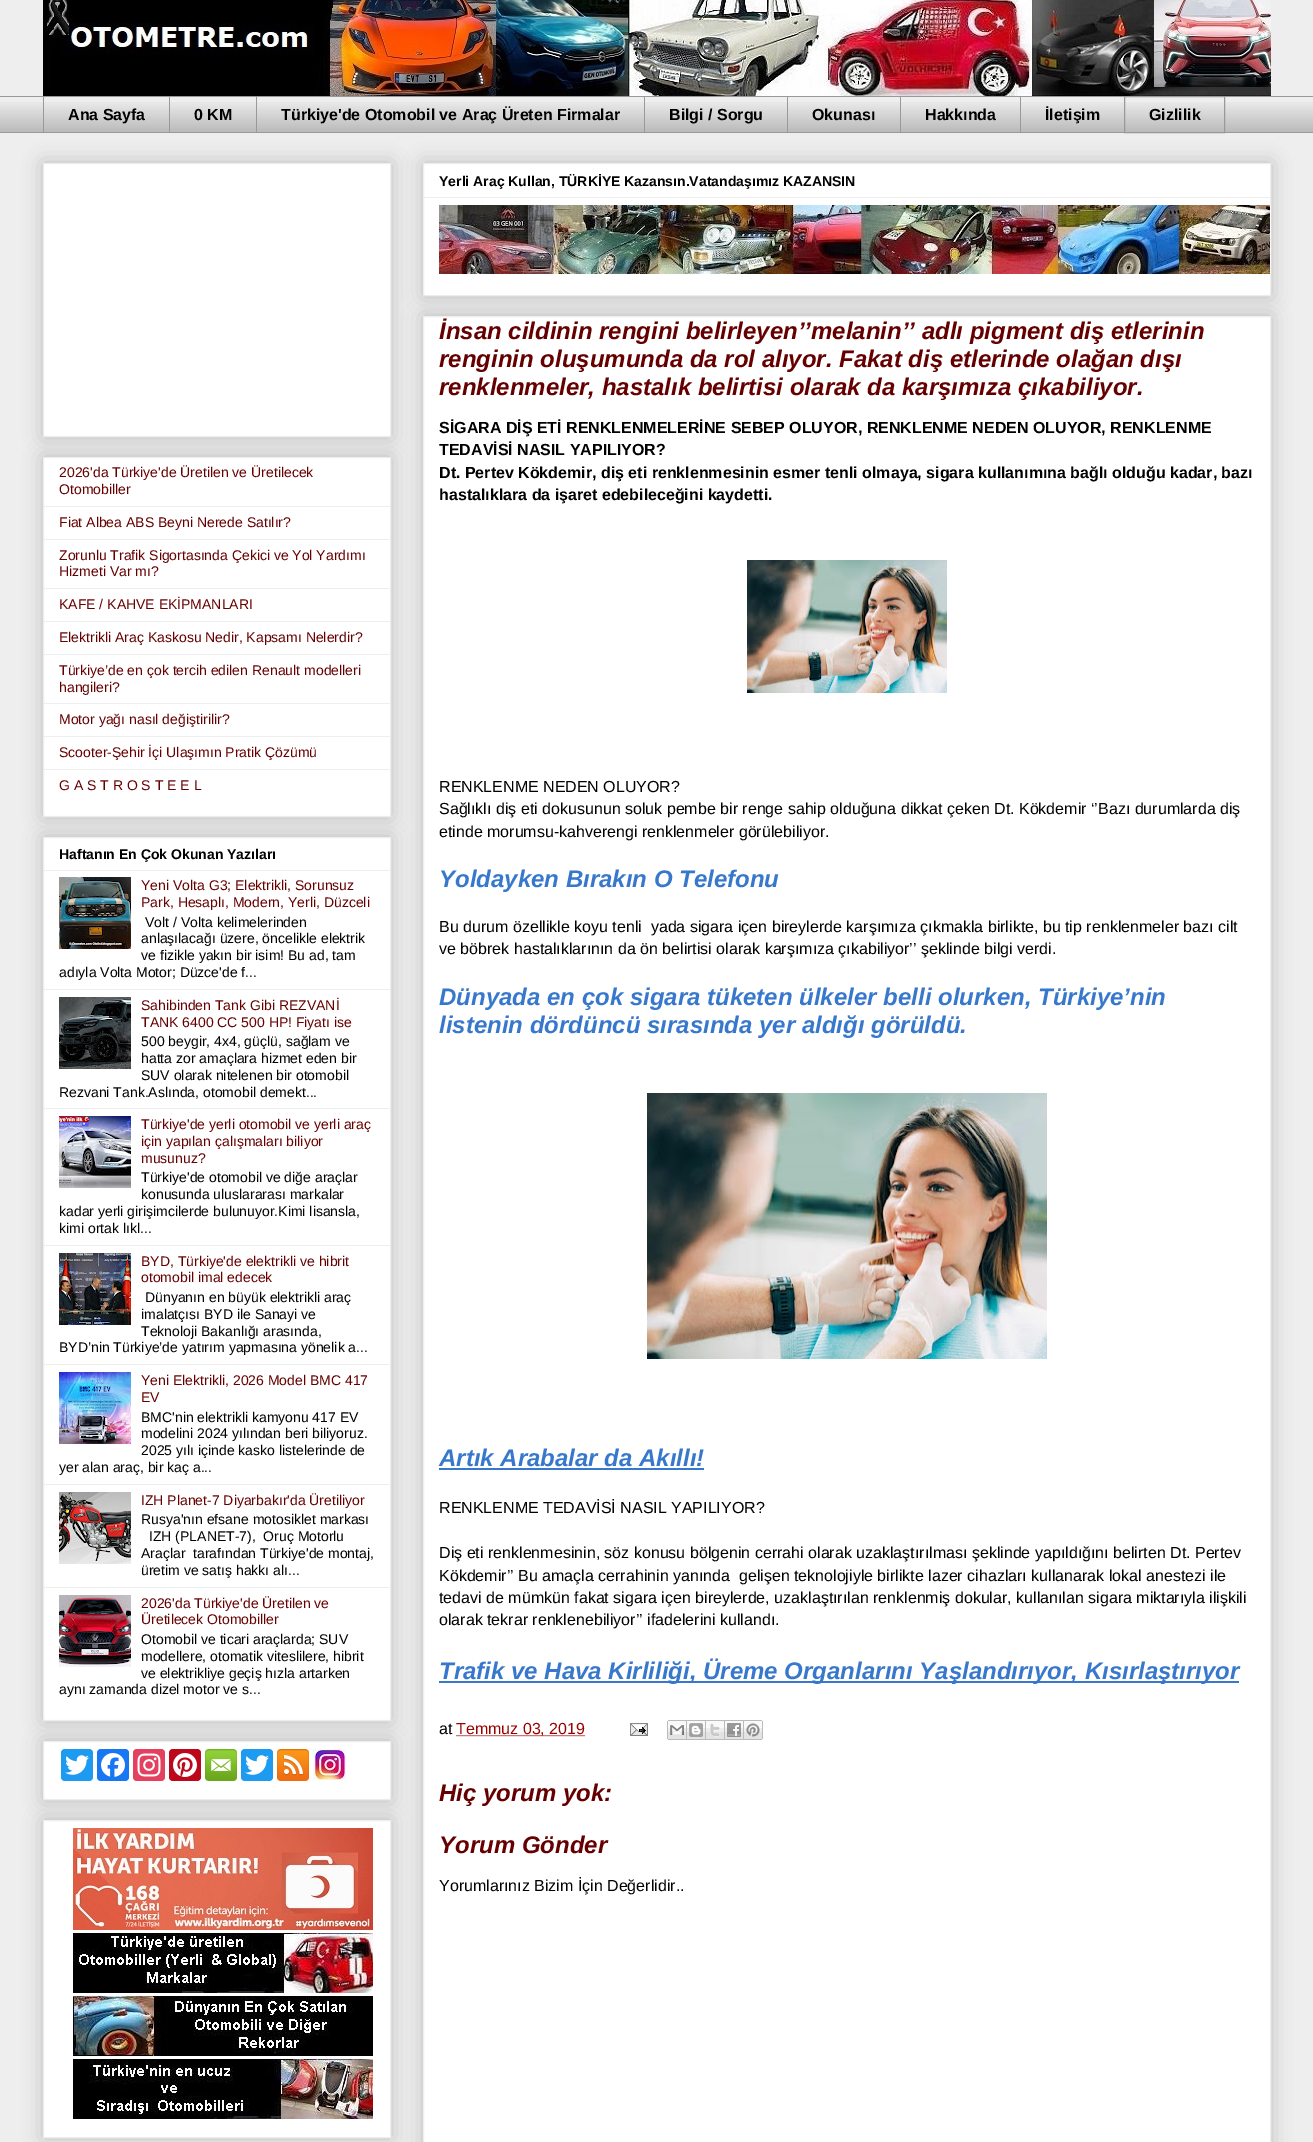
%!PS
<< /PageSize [1313 2142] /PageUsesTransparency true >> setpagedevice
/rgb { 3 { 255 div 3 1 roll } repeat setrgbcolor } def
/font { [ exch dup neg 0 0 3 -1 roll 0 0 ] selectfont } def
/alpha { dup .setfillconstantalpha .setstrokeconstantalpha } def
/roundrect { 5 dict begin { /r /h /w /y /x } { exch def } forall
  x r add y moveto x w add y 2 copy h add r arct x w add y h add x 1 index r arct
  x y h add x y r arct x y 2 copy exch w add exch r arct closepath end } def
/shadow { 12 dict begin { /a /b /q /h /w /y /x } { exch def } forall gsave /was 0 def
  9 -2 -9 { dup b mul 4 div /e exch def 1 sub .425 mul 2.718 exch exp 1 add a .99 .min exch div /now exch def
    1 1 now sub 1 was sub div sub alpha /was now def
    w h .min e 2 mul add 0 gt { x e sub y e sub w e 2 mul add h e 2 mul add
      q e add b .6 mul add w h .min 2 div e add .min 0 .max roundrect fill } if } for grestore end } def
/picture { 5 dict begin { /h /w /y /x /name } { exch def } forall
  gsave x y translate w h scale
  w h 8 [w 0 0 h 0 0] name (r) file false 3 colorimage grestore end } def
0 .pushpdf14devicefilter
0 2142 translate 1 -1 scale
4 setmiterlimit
238 238 238 rgb
0 0 1313 2142 rectfill
(img/1.rgb) 43 0 1228 96 picture
(img/2.rgb) 0 102 1313 30 picture
[
  [0 96 1313 1 153 153 153]
  [43 96 1 37 153 153 153]
  [169 96 1 37 153 153 153]
  [256 96 1 37 153 153 153]
  [644 96 1 37 153 153 153]
  [787 96 1 37 153 153 153]
  [900 96 1 37 153 153 153]
  [1020 96 1 37 153 153 153]
] { aload pop rgb rectfill } forall
1124.5 96.5 100 36 rectstroke
0 132 1313 1 rectfill
0 0 0 rgb
43 163 348 274 0 10 0.2 shadow
255 255 255 rgb
43.5 163.5 moveto 390.5 163.5 lineto 390.5 436.5 lineto 43.5 436.5 lineto closepath gsave fill grestore
238 238 238 rgb
stroke
0 0 0 rgb
43 457 348 360 0 10 0.2 shadow
255 255 255 rgb
43.5 457.5 moveto 390.5 457.5 lineto 390.5 816.5 lineto 43.5 816.5 lineto closepath gsave fill grestore
238 238 238 rgb
stroke
[
  [44 506 346 1 238 238 238]
  [44 539 346 1 238 238 238]
  [44 588 346 1 238 238 238]
  [44 621 346 1 238 238 238]
  [44 654 346 1 238 238 238]
  [44 703 346 1 238 238 238]
  [44 736 346 1 238 238 238]
  [44 769 346 1 238 238 238]
] { aload pop rgb rectfill } forall
0 0 0 rgb
43 837 348 884 0 10 0.2 shadow
255 255 255 rgb
43.5 837.5 moveto 390.5 837.5 lineto 390.5 1720.5 lineto 43.5 1720.5 lineto closepath gsave fill grestore
238 238 238 rgb
stroke
44 870 346 1 rectfill
(img/3.rgb) 59 877 72 72 picture
44 989 346 1 rectfill
(img/4.rgb) 59 997 72 72 picture
44 1108 346 1 rectfill
(img/5.rgb) 59 1116 72 72 picture
44 1245 346 1 rectfill
(img/6.rgb) 59 1253 72 72 picture
44 1364 346 1 rectfill
(img/7.rgb) 59 1372 72 72 picture
44 1484 346 1 rectfill
(img/8.rgb) 59 1492 72 72 picture
44 1587 346 1 rectfill
(img/9.rgb) 59 1595 72 72 picture
0 0 0 rgb
43 1741 348 59 0 10 0.2 shadow
255 255 255 rgb
43.5 1741.5 moveto 390.5 1741.5 lineto 390.5 1799.5 lineto 43.5 1799.5 lineto closepath gsave fill grestore
238 238 238 rgb
stroke
29 155 240 rgb
61 1749 32 32 4 roundrect fill
(img/10.rgb) 65 1755 24 20 picture
24 119 242 rgb
97 1749 32 32 4 roundrect fill
(img/11.rgb) 101 1753 24 24 picture
228 64 95 rgb
133 1749 32 32 4 roundrect fill
(img/12.rgb) 137 1753 24 24 picture
189 8 28 rgb
169 1749 32 32 4 roundrect fill
(img/13.rgb) 173 1753 24 24 picture
(img/14.rgb) 205 1749 32 32 picture
29 155 240 rgb
241 1749 32 32 4 roundrect fill
(img/10.rgb) 245 1755 24 20 picture
(img/15.rgb) 277 1749 32 32 picture
(img/16.rgb) 313 1749 33 31 picture
0 0 0 rgb
43 1820 348 318 0 10 0.2 shadow
255 255 255 rgb
43.5 1820.5 moveto 390.5 1820.5 lineto 390.5 2137.5 lineto 43.5 2137.5 lineto closepath gsave fill grestore
238 238 238 rgb
stroke
(img/17.rgb) 73 1828 300 102 picture
(img/18.rgb) 73 1933 300 60 picture
(img/19.rgb) 73 1996 300 60 picture
(img/20.rgb) 73 2059 300 60 picture
0 0 0 rgb
423 163 848 133 0 10 0.2 shadow
255 255 255 rgb
423.5 163.5 moveto 1270.5 163.5 lineto 1270.5 295.5 lineto 423.5 295.5 lineto closepath gsave fill grestore
238 238 238 rgb
stroke
424 197 846 1 rectfill
(img/21.rgb) 439 205 832 69 picture
0 0 0 rgb
423 316 848 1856 0 10 0.2 shadow
255 255 255 rgb
423.5 316.5 moveto 1270.5 316.5 lineto 1270.5 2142.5 lineto 423.5 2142.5 lineto closepath gsave fill grestore
238 238 238 rgb
stroke
(img/22.rgb) 747 560 200 133 picture
(img/23.rgb) 647 1093 400 266 picture
55 120 205 rgb
439 1468 265 2 rectfill
439 1681 800 2 rectfill
153 0 0 rgb
[1 1] 0 setdash
456.5 1735.5 moveto 585 1735.5 lineto stroke
(img/24.rgb) 630 1723 18 13 picture
(img/25.rgb) 667 1720 20 20 picture
(img/26.rgb) 687 1720 19 20 picture
(img/27.rgb) 706 1720 19 20 picture
(img/28.rgb) 725 1720 19 20 picture
(img/29.rgb) 744 1720 19 20 picture
/LiberationSans-Bold 16 font
0 0 0 rgb
[
  [(Ana Sayfa) 68 120]
  [(0 KM) 194 120]
  [(Türkiye'de Otomobil ve Araç Üreten Firmalar) 281 120]
  [(Bilgi / Sorgu) 669 120]
  [(Okunası) 812 120]
  [(Hakkında) 925 120]
  [(İletişim) 1045 120]
  [(Gizlilik) 1149 120]
] { aload pop moveto show } forall
/LiberationSans-Regular 14 font
102 0 0 rgb
[
  [(2026'da Türkiye'de Üretilen ve Üretilecek) 59 477]
  [(Otomobiller) 59 494]
  [(Fiat Albea ABS Beyni Nerede Satılır?) 59 527]
  [(Zorunlu Trafik Sigortasında Çekici ve Yol Yardımı) 59 560]
  [(Hizmeti Var mı?) 59 576]
  [(KAFE / KAHVE EKİPMANLARI) 59 609]
  [(Elektrikli Araç Kaskosu Nedir, Kapsamı Nelerdir?) 59 642]
  [(Türkiye’de en çok tercih edilen Renault modelleri) 59 675]
  [(hangileri?) 59 692]
  [(Motor yağı nasıl değiştirilir?) 59 724]
  [(Scooter-Şehir İçi Ulaşımın Pratik Çözümü) 59 757]
  [(G A S T R O S T E E L) 59 790]
] { aload pop moveto show } forall
/LiberationSans-Bold 14 font
0 0 0 rgb
59 859 moveto (Haftanın En Çok Okunan Yazıları) show
/LiberationSans-Regular 14 font
102 0 0 rgb
141 890 moveto (Yeni Volta G3; Elektrikli, Sorunsuz) show
141 907 moveto (Park, Hesaplı, Modern, Yerli, Düzceli) show
0 0 0 rgb
[
  [(Volt / Volta kelimelerinden) 145 927]
  [(anlaşılacağı üzere, öncelikle elektrik) 141 943]
  [(ve fizikle yakın bir isim! Bu ad, tam) 141 960]
  [(adıyla Volta Motor; Düzce'de f...) 59 977]
] { aload pop moveto show } forall
102 0 0 rgb
141 1010 moveto (Sahibinden Tank Gibi REZVANİ) show
141 1027 moveto (TANK 6400 CC 500 HP! Fiyatı ise) show
0 0 0 rgb
[
  [(500 beygir, 4x4, güçlü, sağlam ve) 141 1046]
  [(hatta zor amaçlara hizmet eden bir) 141 1063]
  [(SUV olarak nitelenen bir otomobil) 141 1080]
  [(Rezvani Tank.Aslında, otomobil demekt...) 59 1097]
] { aload pop moveto show } forall
102 0 0 rgb
[
  [(Türkiye'de yerli otomobil ve yerli araç) 141 1129]
  [(için yapılan çalışmaları biliyor) 141 1146]
  [(musunuz?) 141 1163]
] { aload pop moveto show } forall
0 0 0 rgb
[
  [(Türkiye'de otomobil ve diğe araçlar) 141 1182]
  [(konusunda uluslararası markalar) 141 1199]
  [(kadar yerli girişimcilerde bulunuyor.Kimi lisansla,) 59 1216]
  [(kimi ortak lıkl...) 59 1233]
] { aload pop moveto show } forall
102 0 0 rgb
141 1266 moveto (BYD, Türkiye'de elektrikli ve hibrit) show
141 1282 moveto (otomobil imal edecek) show
0 0 0 rgb
[
  [(Dünyanın en büyük elektrikli araç) 145 1302]
  [(imalatçısı BYD ile Sanayi ve) 141 1319]
  [(Teknoloji Bakanlığı arasında,) 141 1336]
  [(BYD’nin Türkiye’de yatırım yapmasına yönelik a...) 59 1352]
] { aload pop moveto show } forall
102 0 0 rgb
141 1385 moveto (Yeni Elektrikli, 2026 Model BMC 417) show
141 1402 moveto (EV) show
0 0 0 rgb
[
  [(BMC'nin elektrikli kamyonu 417 EV) 141 1422]
  [(modelini 2024 yılından beri biliyoruz.) 141 1438]
  [(2025 yılı içinde kasko listelerinde de) 141 1455]
  [(yer alan araç, bir kaç a...) 59 1472]
] { aload pop moveto show } forall
102 0 0 rgb
141 1505 moveto (IZH Planet-7 Diyarbakır'da Üretiliyor) show
0 0 0 rgb
[
  [(Rusya'nın efsane motosiklet markası) 141 1524]
  [(IZH \(PLANET-7\),  Oruç Motorlu) 149 1541]
  [(Araçlar  tarafından Türkiye'de montaj,) 141 1558]
  [(üretim ve satış hakkı alı...) 141 1575]
] { aload pop moveto show } forall
102 0 0 rgb
141 1608 moveto (2026'da Türkiye'de Üretilen ve) show
141 1624 moveto (Üretilecek Otomobiller) show
0 0 0 rgb
[
  [(Otomobil ve ticari araçlarda; SUV) 141 1644]
  [(modellere, otomatik viteslilere, hibrit) 141 1661]
  [(ve elektrikliye geçiş hızla artarken) 141 1678]
  [(aynı zamanda dizel motor ve s...) 59 1694]
] { aload pop moveto show } forall
/LiberationSans-Bold 14 font
439 186 moveto (Yerli Araç Kullan, TÜRKİYE Kazansın.Vatandaşımız KAZANSIN) show
/LiberationSans-BoldItalic 24 font
102 0 0 rgb
[
  [(İnsan cildinin rengini belirleyen’’melanin’’ adlı pigment diş etlerinin) 439 339]
  [(renginin oluşumunda da rol alıyor. Fakat diş etlerinde olağan dışı) 439 367]
  [(renklenmeler, hastalık belirtisi olarak da karşımıza çıkabiliyor.) 439 395]
] { aload pop moveto show } forall
/LiberationSans-Bold 16 font
0 0 0 rgb
[
  [(SİGARA DİŞ ETİ RENKLENMELERİNE SEBEP OLUYOR, RENKLENME NEDEN OLUYOR, RENKLENME) 439 433]
  [(TEDAVİSİ NASIL YAPILIYOR?) 439 455]
  [(Dt. Pertev Kökdemir, diş eti renklenmesinin esmer tenli olmaya, sigara kullanımına bağlı olduğu kadar, bazı) 439 478]
  [(hastalıklara da işaret edebileceğini kaydetti.) 439 500]
] { aload pop moveto show } forall
/LiberationSans-Regular 16 font
[
  [(RENKLENME NEDEN OLUYOR?) 439 792]
  [(Sağlıklı diş eti dokusunun soluk pembe bir renge sahip olduğuna dikkat çeken Dt. Kökdemir ‘’Bazı durumlarda diş) 439 814]
  [(etinde morumsu-kahverengi renklenmeler görülebiliyor.) 439 837]
] { aload pop moveto show } forall
/LiberationSans-BoldItalic 24 font
55 120 205 rgb
439 887 moveto (Yoldayken Bırakın O Telefonu) show
/LiberationSans-Regular 16 font
0 0 0 rgb
439 932 moveto (Bu durum özellikle koyu tenli  yada sigara içen bireylerde karşımıza çıkmakla birlikte, bu tip renklenmeler bazı cilt) show
439 954 moveto (ve böbrek hastalıklarının da ön belirtisi olarak karşımıza çıkabiliyor’’ şeklinde bilgi verdi.) show
/LiberationSans-BoldItalic 24 font
55 120 205 rgb
[
  [(Dünyada en çok sigara tüketen ülkeler belli olurken, Türkiye’nin) 439 1005]
  [(listenin dördüncü sırasında yer aldığı görüldü.) 439 1033]
  [(Artık Arabalar da Akıllı!) 439 1466]
] { aload pop moveto show } forall
/LiberationSans-Regular 16 font
0 0 0 rgb
[
  [(RENKLENME TEDAVİSİ NASIL YAPILIYOR?) 439 1513]
  [(Diş eti renklenmesinin, söz konusu bölgenin cerrahi olarak uzaklaştırılması şeklinde yapıldığını belirten Dt. Pertev) 439 1558]
  [(Kökdemir’’ Bu amaçla cerrahinin yanında  gelişen teknolojiyle birlikte lazer cihazları kullanarak lokal anestezi ile) 439 1581]
  [(tedavi de mümkün fakat sigara içen bireylerde, uzaklaştırılan renklenmiş dokular, kullanılan sigara miktarıyla ilişkili) 439 1603]
  [(olarak tekrar renklenebiliyor’’ ifadelerini kullandı.) 439 1625]
] { aload pop moveto show } forall
/LiberationSans-BoldItalic 24 font
55 120 205 rgb
439 1679 moveto (Trafik ve Hava Kirliliği, Üreme Organlarını Yaşlandırıyor, Kısırlaştırıyor) show
/LiberationSans-Regular 16 font
0 0 0 rgb
439 1734 moveto (at) show
153 0 0 rgb
456 1734 moveto (Temmuz 03, 2019) show
/LiberationSans-BoldItalic 24 font
102 0 0 rgb
439 1801 moveto (Hiç yorum yok:) show
439 1853 moveto (Yorum Gönder) show
/LiberationSans-Regular 16 font
0 0 0 rgb
439 1891 moveto (Yorumlarınız Bizim İçin Değerlidir..) show
.poppdf14devicefilter showpage
